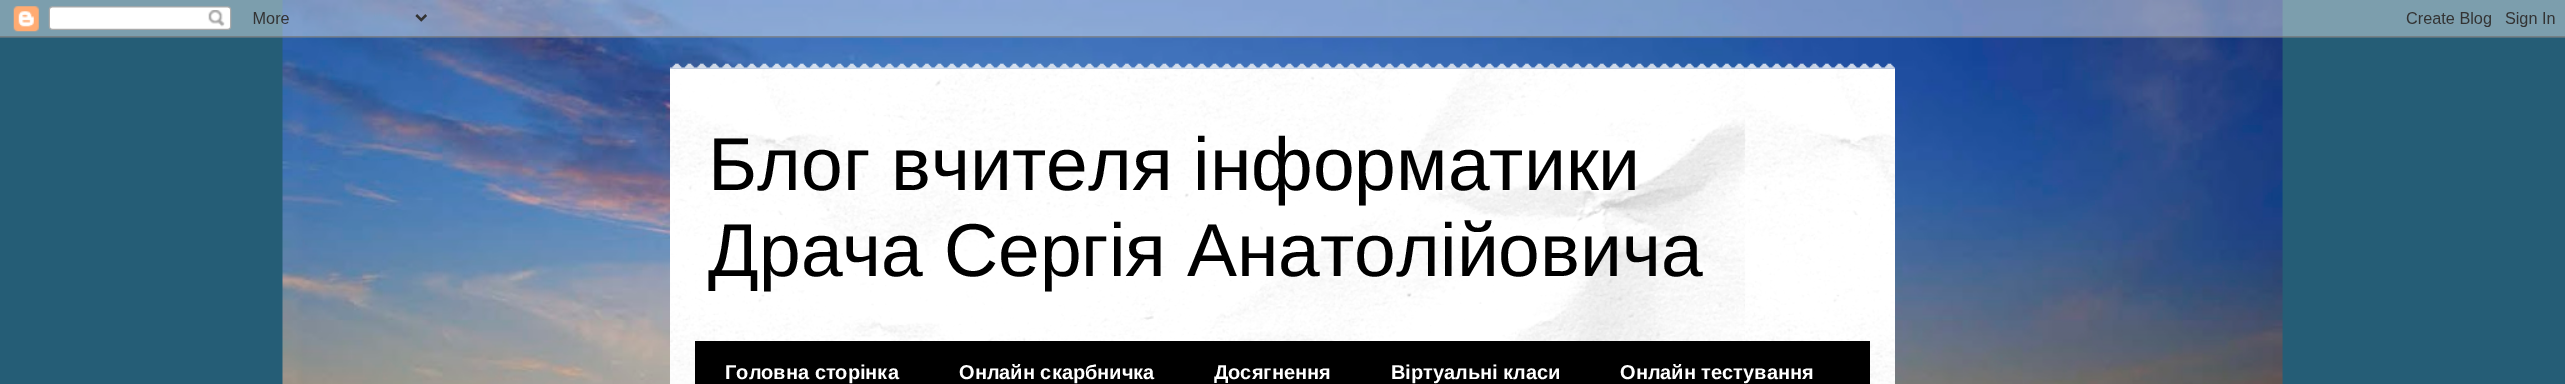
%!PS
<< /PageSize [2565 384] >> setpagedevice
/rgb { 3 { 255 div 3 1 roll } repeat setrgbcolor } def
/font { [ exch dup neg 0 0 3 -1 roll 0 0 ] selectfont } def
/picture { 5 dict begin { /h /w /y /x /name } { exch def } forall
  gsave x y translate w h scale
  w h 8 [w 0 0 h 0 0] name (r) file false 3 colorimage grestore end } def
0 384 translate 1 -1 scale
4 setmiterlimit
37 93 118 rgb
0 0 2565 384 rectfill
(img/1.rgb) 282 0 2001 384 picture
(img/2.rgb) 0 0 2565 38 picture
(img/3.rgb) 670 63 1225 6 picture
255 255 255 rgb
670 69 1225 315 rectfill
(img/4.rgb) 670 68 1225 316 picture
0 0 0 rgb
695 341 1175 43 rectfill
/LiberationSans-Regular 75 font
708 190 moveto (Блог вчителя інформатики) show
708 276 moveto (Драча Сергія Анатолійовича) show
/LiberationSans-Bold 20 font
255 255 255 rgb
[
  [(Головна сторінка) 725 379]
  [(Онлайн скарбничка) 959 379]
  [(Досягнення) 1214 379]
  [(Віртуальні класи) 1391 379]
  [(Онлайн тестування) 1620 379]
] { aload pop moveto show } forall
showpage
